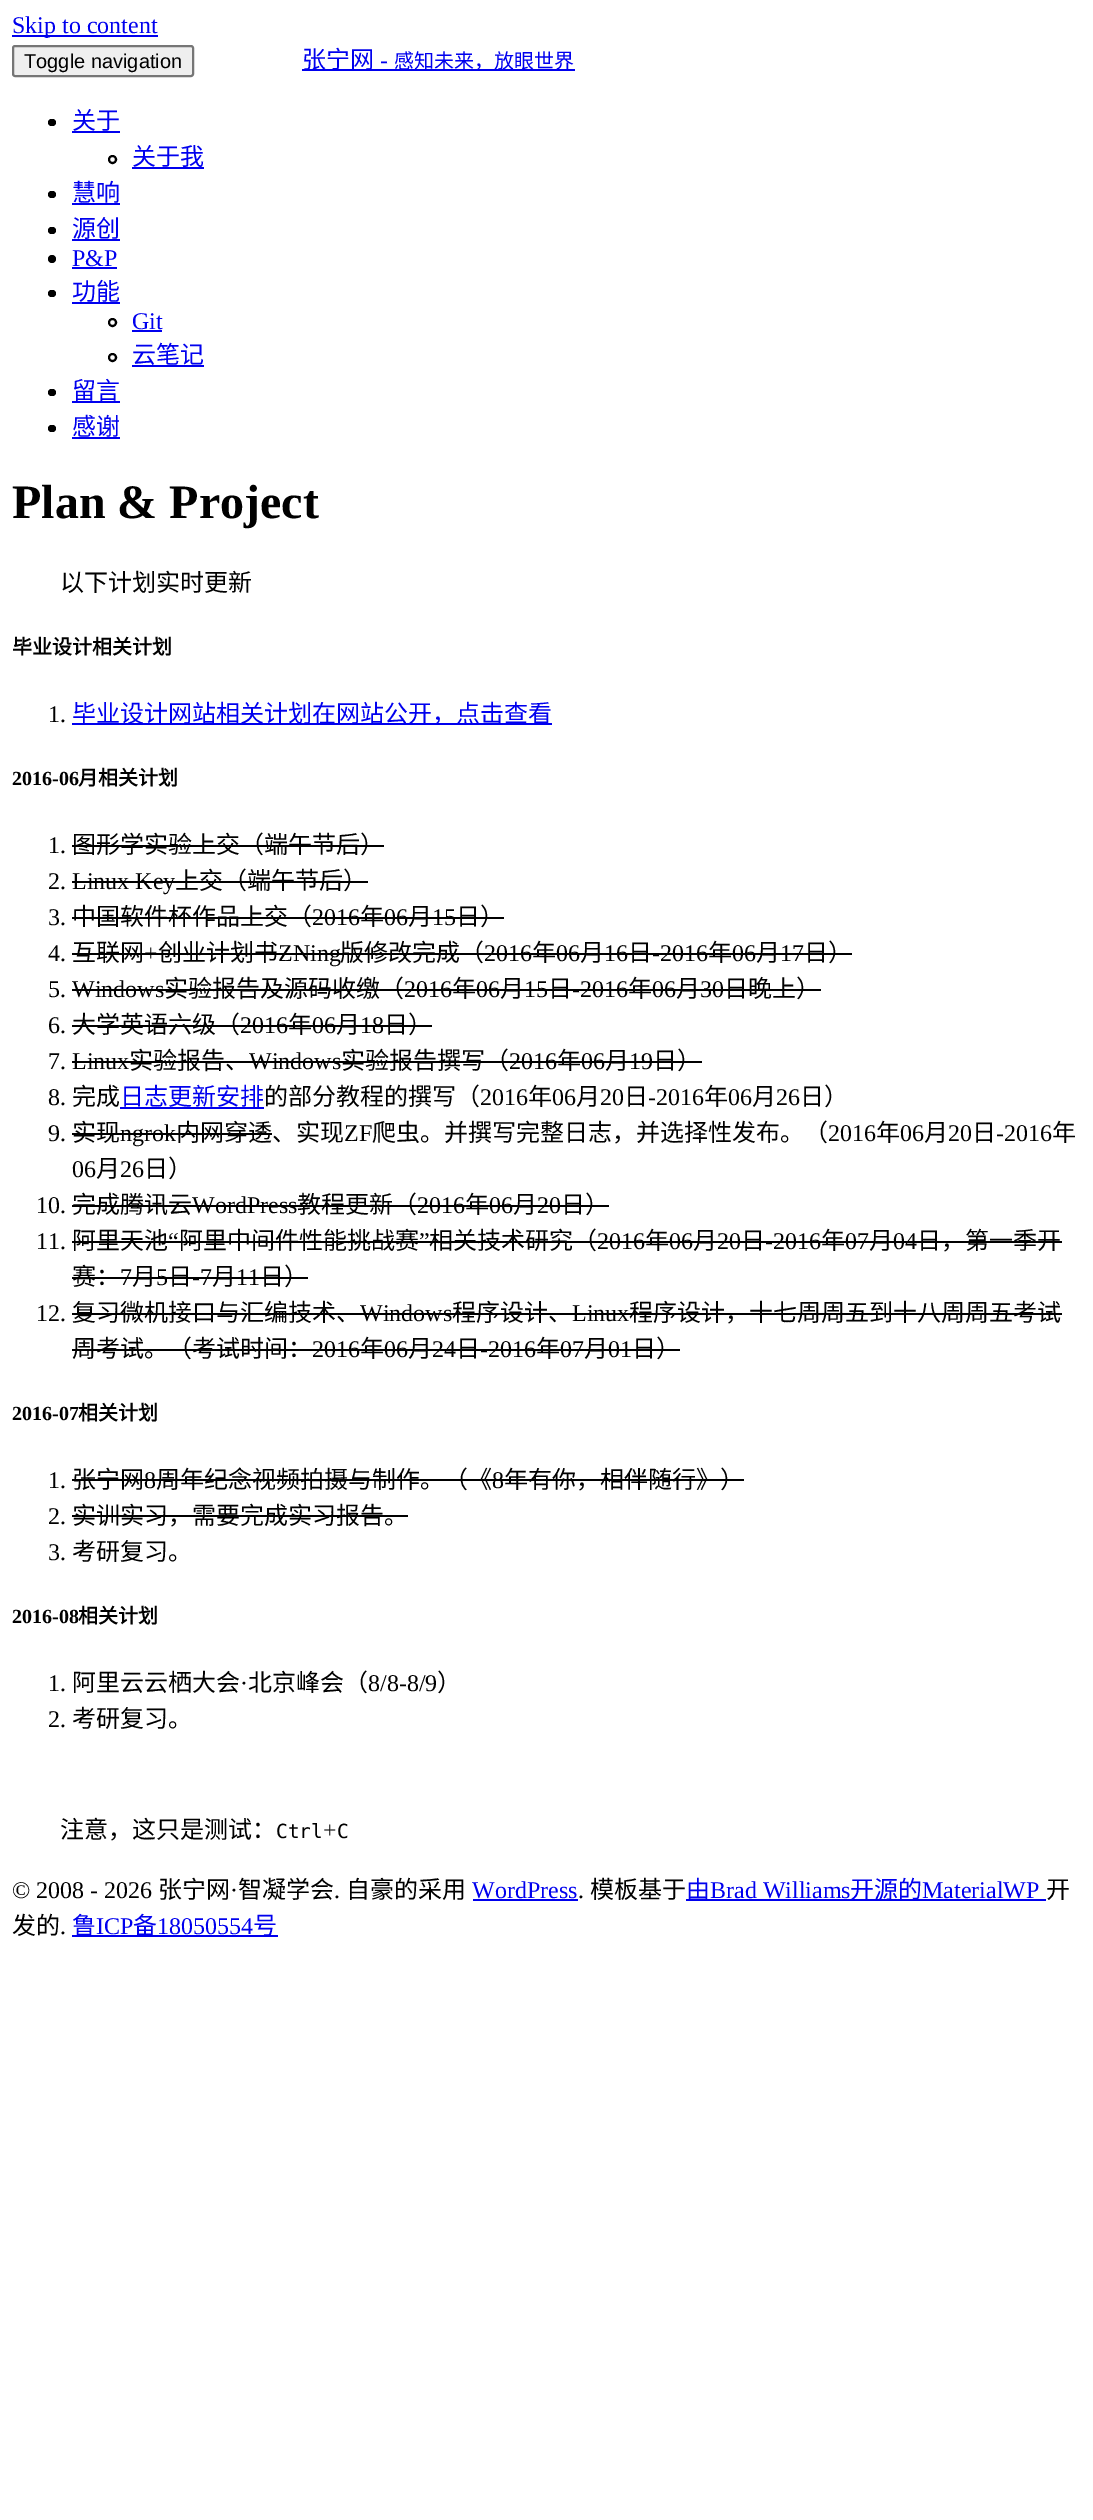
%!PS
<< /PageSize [1093 2520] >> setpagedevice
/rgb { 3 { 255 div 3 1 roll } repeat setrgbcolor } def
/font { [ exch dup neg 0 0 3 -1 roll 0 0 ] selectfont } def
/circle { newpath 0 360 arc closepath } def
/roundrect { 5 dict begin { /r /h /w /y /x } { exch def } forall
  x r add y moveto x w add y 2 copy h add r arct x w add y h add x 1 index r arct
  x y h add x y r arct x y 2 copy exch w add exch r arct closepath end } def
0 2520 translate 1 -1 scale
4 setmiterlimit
255 255 255 rgb
0 0 1093 2520 rectfill
0 0 238 rgb
12 35 146 2 rectfill
239 239 239 rgb
13 46 180 30 2 roundrect gsave fill grestore
118 118 118 rgb
2 setlinewidth
stroke
0 0 238 rgb
302 69 273 2 rectfill
0 0 0 rgb
48 119 8 7 3.5 roundrect fill
0 0 238 rgb
72 131 48 2 rectfill
0 0 0 rgb
112.5 159.5 3.5 circle stroke
0 0 238 rgb
132 167 72 2 rectfill
0 0 0 rgb
48 191 8 7 3.5 roundrect fill
0 0 238 rgb
72 203 48 2 rectfill
0 0 0 rgb
48 227 8 7 3.5 roundrect fill
0 0 238 rgb
72 239 48 2 rectfill
0 0 0 rgb
52 259 4 circle fill
0 0 238 rgb
72 267 45 2 rectfill
0 0 0 rgb
48 290 8 7 3.5 roundrect fill
0 0 238 rgb
72 302 48 2 rectfill
0 0 0 rgb
112.5 322.5 3.5 circle stroke
0 0 238 rgb
132 330 30 2 rectfill
0 0 0 rgb
112.5 357.5 3.5 circle stroke
0 0 238 rgb
132 365 72 2 rectfill
0 0 0 rgb
48 389 8 7 3.5 roundrect fill
0 0 238 rgb
72 401 48 2 rectfill
0 0 0 rgb
48 425 8 7 3.5 roundrect fill
[
  [72 437 48 2 0 0 238]
  [72 723 480 2 0 0 238]
  [72 845 312 2 0 0 0]
  [72 881 296 2 0 0 0]
  [72 917 432 2 0 0 0]
  [72 953 780 2 0 0 0]
  [72 989 749 2 0 0 0]
  [72 1025 360 2 0 0 0]
  [72 1061 630 2 0 0 0]
  [120 1107 144 2 0 0 238]
  [72 1133 200 2 0 0 0]
  [72 1205 537 2 0 0 0]
  [72 1241 990 2 0 0 0]
  [72 1277 236 2 0 0 0]
  [72 1313 990 2 0 0 0]
  [72 1349 608 2 0 0 0]
  [72 1479 672 2 0 0 0]
  [72 1515 336 2 0 0 0]
  [473 1899 105 2 0 0 238]
  [686 1899 360 2 0 0 238]
  [72 1935 206 2 0 0 238]
] { aload pop rgb rectfill } forall
/LiberationSerif-Regular 24 font
12 33 moveto (Skip to content) show
/LiberationSans-Regular 20 font
0 0 0 rgb
24 68 moveto (Toggle navigation) show
/NotoSansCJKSC-Regular 24 font
0 0 238 rgb
302 68 moveto (张宁网) show
/LiberationSerif-Regular 24 font
380 68 moveto (-) show
/NotoSansCJKSC-Regular 20 font
394 68 moveto (感知未来，放眼世界) show
/NotoSansCJKSC-Regular 24 font
[
  [(关于) 72 129]
  [(关于我) 132 165]
  [(慧响) 72 201]
  [(源创) 72 237]
] { aload pop moveto show } forall
/LiberationSerif-Regular 24 font
72 266 moveto (P&P) show
/NotoSansCJKSC-Regular 24 font
72 300 moveto (功能) show
/LiberationSerif-Regular 24 font
132 329 moveto (Git) show
/NotoSansCJKSC-Regular 24 font
[
  [(云笔记) 132 363]
  [(留言) 72 399]
  [(感谢) 72 435]
] { aload pop moveto show } forall
/LiberationSerif-Bold 48 font
0 0 0 rgb
12 518 moveto (Plan & Project) show
/NotoSansCJKSC-Regular 24 font
60 591 moveto (以下计划实时更新) show
/NotoSansCJKSC-Bold 20 font
12 654 moveto (毕业设计相关计划) show
/LiberationSerif-Regular 24 font
48 722 moveto (1.) show
/NotoSansCJKSC-Regular 24 font
0 0 238 rgb
72 722 moveto (毕业设计网站相关计划在网站公开，点击查看) show
/LiberationSerif-Bold 20 font
0 0 0 rgb
12 785 moveto (2016-06) show
/NotoSansCJKSC-Bold 20 font
78 785 moveto (月相关计划) show
/LiberationSerif-Regular 24 font
48 853 moveto (1.) show
/NotoSansCJKSC-Regular 24 font
72 853 moveto (图形学实验上交（端午节后）) show
/LiberationSerif-Regular 24 font
48 889 moveto (2. Linux Key) show
/NotoSansCJKSC-Regular 24 font
175 889 moveto (上交（端午节后）) show
/LiberationSerif-Regular 24 font
48 925 moveto (3.) show
/NotoSansCJKSC-Regular 24 font
72 925 moveto (中国软件杯作品上交（) show
/LiberationSerif-Regular 24 font
312 925 moveto (2016) show
/NotoSansCJKSC-Regular 24 font
360 925 moveto (年) show
/LiberationSerif-Regular 24 font
384 925 moveto (06) show
/NotoSansCJKSC-Regular 24 font
408 925 moveto (月) show
/LiberationSerif-Regular 24 font
432 925 moveto (15) show
/NotoSansCJKSC-Regular 24 font
456 925 moveto (日）) show
/LiberationSerif-Regular 24 font
48 961 moveto (4.) show
/NotoSansCJKSC-Regular 24 font
72 961 moveto (互联网) show
/LiberationSerif-Regular 24 font
144 961 moveto (+) show
/NotoSansCJKSC-Regular 24 font
158 961 moveto (创业计划书) show
/LiberationSerif-Regular 24 font
278 961 moveto (ZNing) show
/NotoSansCJKSC-Regular 24 font
340 961 moveto (版修改完成（) show
/LiberationSerif-Regular 24 font
484 961 moveto (2016) show
/NotoSansCJKSC-Regular 24 font
532 961 moveto (年) show
/LiberationSerif-Regular 24 font
556 961 moveto (06) show
/NotoSansCJKSC-Regular 24 font
580 961 moveto (月) show
/LiberationSerif-Regular 24 font
604 961 moveto (16) show
/NotoSansCJKSC-Regular 24 font
628 961 moveto (日) show
/LiberationSerif-Regular 24 font
652 961 moveto (-2016) show
/NotoSansCJKSC-Regular 24 font
708 961 moveto (年) show
/LiberationSerif-Regular 24 font
732 961 moveto (06) show
/NotoSansCJKSC-Regular 24 font
756 961 moveto (月) show
/LiberationSerif-Regular 24 font
780 961 moveto (17) show
/NotoSansCJKSC-Regular 24 font
804 961 moveto (日）) show
/LiberationSerif-Regular 24 font
48 997 moveto (5. Windows) show
/NotoSansCJKSC-Regular 24 font
164 997 moveto (实验报告及源码收缴（) show
/LiberationSerif-Regular 24 font
404 997 moveto (2016) show
/NotoSansCJKSC-Regular 24 font
452 997 moveto (年) show
/LiberationSerif-Regular 24 font
476 997 moveto (06) show
/NotoSansCJKSC-Regular 24 font
500 997 moveto (月) show
/LiberationSerif-Regular 24 font
524 997 moveto (15) show
/NotoSansCJKSC-Regular 24 font
548 997 moveto (日) show
/LiberationSerif-Regular 24 font
572 997 moveto (-2016) show
/NotoSansCJKSC-Regular 24 font
628 997 moveto (年) show
/LiberationSerif-Regular 24 font
652 997 moveto (06) show
/NotoSansCJKSC-Regular 24 font
676 997 moveto (月) show
/LiberationSerif-Regular 24 font
700 997 moveto (30) show
/NotoSansCJKSC-Regular 24 font
724 997 moveto (日晚上）) show
/LiberationSerif-Regular 24 font
48 1033 moveto (6.) show
/NotoSansCJKSC-Regular 24 font
72 1033 moveto (大学英语六级（) show
/LiberationSerif-Regular 24 font
240 1033 moveto (2016) show
/NotoSansCJKSC-Regular 24 font
288 1033 moveto (年) show
/LiberationSerif-Regular 24 font
312 1033 moveto (06) show
/NotoSansCJKSC-Regular 24 font
336 1033 moveto (月) show
/LiberationSerif-Regular 24 font
360 1033 moveto (18) show
/NotoSansCJKSC-Regular 24 font
384 1033 moveto (日）) show
/LiberationSerif-Regular 24 font
48 1069 moveto (7. Linux) show
/NotoSansCJKSC-Regular 24 font
129 1069 moveto (实验报告、) show
/LiberationSerif-Regular 24 font
249 1069 moveto (Windows) show
/NotoSansCJKSC-Regular 24 font
341 1069 moveto (实验报告撰写（) show
/LiberationSerif-Regular 24 font
509 1069 moveto (2016) show
/NotoSansCJKSC-Regular 24 font
557 1069 moveto (年) show
/LiberationSerif-Regular 24 font
581 1069 moveto (06) show
/NotoSansCJKSC-Regular 24 font
605 1069 moveto (月) show
/LiberationSerif-Regular 24 font
629 1069 moveto (19) show
/NotoSansCJKSC-Regular 24 font
653 1069 moveto (日）) show
/LiberationSerif-Regular 24 font
48 1105 moveto (8.) show
/NotoSansCJKSC-Regular 24 font
72 1105 moveto (完成) show
0 0 238 rgb
120 1105 moveto (日志更新安排) show
0 0 0 rgb
264 1105 moveto (的部分教程的撰写（) show
/LiberationSerif-Regular 24 font
480 1105 moveto (2016) show
/NotoSansCJKSC-Regular 24 font
528 1105 moveto (年) show
/LiberationSerif-Regular 24 font
552 1105 moveto (06) show
/NotoSansCJKSC-Regular 24 font
576 1105 moveto (月) show
/LiberationSerif-Regular 24 font
600 1105 moveto (20) show
/NotoSansCJKSC-Regular 24 font
624 1105 moveto (日) show
/LiberationSerif-Regular 24 font
648 1105 moveto (-2016) show
/NotoSansCJKSC-Regular 24 font
704 1105 moveto (年) show
/LiberationSerif-Regular 24 font
728 1105 moveto (06) show
/NotoSansCJKSC-Regular 24 font
752 1105 moveto (月) show
/LiberationSerif-Regular 24 font
776 1105 moveto (26) show
/NotoSansCJKSC-Regular 24 font
800 1105 moveto (日）) show
/LiberationSerif-Regular 24 font
48 1141 moveto (9.) show
/NotoSansCJKSC-Regular 24 font
72 1141 moveto (实现) show
/LiberationSerif-Regular 24 font
120 1141 moveto (ngrok) show
/NotoSansCJKSC-Regular 24 font
176 1141 moveto (内网穿透、实现) show
/LiberationSerif-Regular 24 font
344 1141 moveto (ZF) show
/NotoSansCJKSC-Regular 24 font
372 1141 moveto (爬虫。并撰写完整日志，并选择性发布。（) show
/LiberationSerif-Regular 24 font
828 1141 moveto (2016) show
/NotoSansCJKSC-Regular 24 font
876 1141 moveto (年) show
/LiberationSerif-Regular 24 font
900 1141 moveto (06) show
/NotoSansCJKSC-Regular 24 font
924 1141 moveto (月) show
/LiberationSerif-Regular 24 font
948 1141 moveto (20) show
/NotoSansCJKSC-Regular 24 font
972 1141 moveto (日) show
/LiberationSerif-Regular 24 font
996 1141 moveto (-2016) show
/NotoSansCJKSC-Regular 24 font
1052 1141 moveto (年) show
/LiberationSerif-Regular 24 font
72 1177 moveto (06) show
/NotoSansCJKSC-Regular 24 font
96 1177 moveto (月) show
/LiberationSerif-Regular 24 font
120 1177 moveto (26) show
/NotoSansCJKSC-Regular 24 font
144 1177 moveto (日）) show
/LiberationSerif-Regular 24 font
36 1213 moveto (10.) show
/NotoSansCJKSC-Regular 24 font
72 1213 moveto (完成腾讯云) show
/LiberationSerif-Regular 24 font
192 1213 moveto (WordPress) show
/NotoSansCJKSC-Regular 24 font
297 1213 moveto (教程更新（) show
/LiberationSerif-Regular 24 font
417 1213 moveto (2016) show
/NotoSansCJKSC-Regular 24 font
465 1213 moveto (年) show
/LiberationSerif-Regular 24 font
489 1213 moveto (06) show
/NotoSansCJKSC-Regular 24 font
513 1213 moveto (月) show
/LiberationSerif-Regular 24 font
537 1213 moveto (20) show
/NotoSansCJKSC-Regular 24 font
561 1213 moveto (日）) show
/LiberationSerif-Regular 24 font
36 1249 moveto (11.) show
/NotoSansCJKSC-Regular 24 font
72 1249 moveto (阿里天池) show
/LiberationSerif-Regular 24 font
168 1249 moveto (“) show
/NotoSansCJKSC-Regular 24 font
179 1249 moveto (阿里中间件性能挑战赛) show
/LiberationSerif-Regular 24 font
419 1249 moveto (”) show
/NotoSansCJKSC-Regular 24 font
429 1249 moveto (相关技术研究（) show
/LiberationSerif-Regular 24 font
597 1249 moveto (2016) show
/NotoSansCJKSC-Regular 24 font
645 1249 moveto (年) show
/LiberationSerif-Regular 24 font
669 1249 moveto (06) show
/NotoSansCJKSC-Regular 24 font
693 1249 moveto (月) show
/LiberationSerif-Regular 24 font
717 1249 moveto (20) show
/NotoSansCJKSC-Regular 24 font
741 1249 moveto (日) show
/LiberationSerif-Regular 24 font
765 1249 moveto (-2016) show
/NotoSansCJKSC-Regular 24 font
821 1249 moveto (年) show
/LiberationSerif-Regular 24 font
845 1249 moveto (07) show
/NotoSansCJKSC-Regular 24 font
869 1249 moveto (月) show
/LiberationSerif-Regular 24 font
893 1249 moveto (04) show
/NotoSansCJKSC-Regular 24 font
917 1249 moveto (日，第一季开) show
72 1285 moveto (赛：) show
/LiberationSerif-Regular 24 font
120 1285 moveto (7) show
/NotoSansCJKSC-Regular 24 font
132 1285 moveto (月) show
/LiberationSerif-Regular 24 font
156 1285 moveto (5) show
/NotoSansCJKSC-Regular 24 font
168 1285 moveto (日) show
/LiberationSerif-Regular 24 font
192 1285 moveto (-7) show
/NotoSansCJKSC-Regular 24 font
212 1285 moveto (月) show
/LiberationSerif-Regular 24 font
236 1285 moveto (11) show
/NotoSansCJKSC-Regular 24 font
260 1285 moveto (日）) show
/LiberationSerif-Regular 24 font
36 1321 moveto (12.) show
/NotoSansCJKSC-Regular 24 font
72 1321 moveto (复习微机接口与汇编技术、) show
/LiberationSerif-Regular 24 font
360 1321 moveto (Windows) show
/NotoSansCJKSC-Regular 24 font
452 1321 moveto (程序设计、) show
/LiberationSerif-Regular 24 font
572 1321 moveto (Linux) show
/NotoSansCJKSC-Regular 24 font
629 1321 moveto (程序设计，十七周周五到十八周周五考试) show
72 1357 moveto (周考试。（考试时间：) show
/LiberationSerif-Regular 24 font
312 1357 moveto (2016) show
/NotoSansCJKSC-Regular 24 font
360 1357 moveto (年) show
/LiberationSerif-Regular 24 font
384 1357 moveto (06) show
/NotoSansCJKSC-Regular 24 font
408 1357 moveto (月) show
/LiberationSerif-Regular 24 font
432 1357 moveto (24) show
/NotoSansCJKSC-Regular 24 font
456 1357 moveto (日) show
/LiberationSerif-Regular 24 font
480 1357 moveto (-2016) show
/NotoSansCJKSC-Regular 24 font
536 1357 moveto (年) show
/LiberationSerif-Regular 24 font
560 1357 moveto (07) show
/NotoSansCJKSC-Regular 24 font
584 1357 moveto (月) show
/LiberationSerif-Regular 24 font
608 1357 moveto (01) show
/NotoSansCJKSC-Regular 24 font
632 1357 moveto (日）) show
/LiberationSerif-Bold 20 font
12 1420 moveto (2016-07) show
/NotoSansCJKSC-Bold 20 font
78 1420 moveto (相关计划) show
/LiberationSerif-Regular 24 font
48 1488 moveto (1.) show
/NotoSansCJKSC-Regular 24 font
72 1488 moveto (张宁网) show
/LiberationSerif-Regular 24 font
144 1488 moveto (8) show
/NotoSansCJKSC-Regular 24 font
156 1488 moveto (周年纪念视频拍摄与制作。（《) show
/LiberationSerif-Regular 24 font
492 1488 moveto (8) show
/NotoSansCJKSC-Regular 24 font
504 1488 moveto (年有你，相伴随行》）) show
/LiberationSerif-Regular 24 font
48 1524 moveto (2.) show
/NotoSansCJKSC-Regular 24 font
72 1524 moveto (实训实习，需要完成实习报告。) show
/LiberationSerif-Regular 24 font
48 1560 moveto (3.) show
/NotoSansCJKSC-Regular 24 font
72 1560 moveto (考研复习。) show
/LiberationSerif-Bold 20 font
12 1623 moveto (2016-08) show
/NotoSansCJKSC-Bold 20 font
78 1623 moveto (相关计划) show
/LiberationSerif-Regular 24 font
48 1691 moveto (1.) show
/NotoSansCJKSC-Regular 24 font
72 1691 moveto (阿里云云栖大会) show
/LiberationSerif-Regular 24 font
240 1691 moveto (·) show
/NotoSansCJKSC-Regular 24 font
248 1691 moveto (北京峰会（) show
/LiberationSerif-Regular 24 font
368 1691 moveto (8/8-8/9) show
/NotoSansCJKSC-Regular 24 font
437 1691 moveto (）) show
/LiberationSerif-Regular 24 font
48 1727 moveto (2.) show
/NotoSansCJKSC-Regular 24 font
72 1727 moveto (考研复习。) show
60 1838 moveto (注意，这只是测试：) show
/DejaVuSansMono-Regular 19.5 font
276 1838 moveto (Ctrl) show
/LiberationSerif-Regular 24 font
323 1838 moveto (+) show
/DejaVuSansMono-Regular 19.5 font
337 1838 moveto (C) show
/LiberationSerif-Regular 24 font
12 1898 moveto (© 2008 - 2026) show
/NotoSansCJKSC-Regular 24 font
158 1898 moveto (张宁网) show
/LiberationSerif-Regular 24 font
230 1898 moveto (·) show
/NotoSansCJKSC-Regular 24 font
238 1898 moveto (智凝学会) show
346 1898 moveto (自豪的采用) show
/LiberationSerif-Regular 24 font
0 0 238 rgb
472 1898 moveto (WordPress) show
/NotoSansCJKSC-Regular 24 font
0 0 0 rgb
590 1898 moveto (模板基于) show
0 0 238 rgb
686 1898 moveto (由) show
/LiberationSerif-Regular 24 font
710 1898 moveto (Brad Williams) show
/NotoSansCJKSC-Regular 24 font
850 1898 moveto (开源的) show
/LiberationSerif-Regular 24 font
922 1898 moveto (MaterialWP) show
/NotoSansCJKSC-Regular 24 font
0 0 0 rgb
1046 1898 moveto (开) show
/LiberationSerif-Regular 24 font
334 1898 moveto (.) show
578 1898 moveto (.) show
/NotoSansCJKSC-Regular 24 font
12 1934 moveto (发的) show
/LiberationSerif-Regular 24 font
60 1934 moveto (.) show
/NotoSansCJKSC-Regular 24 font
0 0 238 rgb
72 1934 moveto (鲁) show
/LiberationSerif-Regular 24 font
96 1934 moveto (ICP) show
/NotoSansCJKSC-Regular 24 font
133 1934 moveto (备) show
/LiberationSerif-Regular 24 font
157 1934 moveto (18050554) show
/NotoSansCJKSC-Regular 24 font
253 1934 moveto (号) show
showpage
